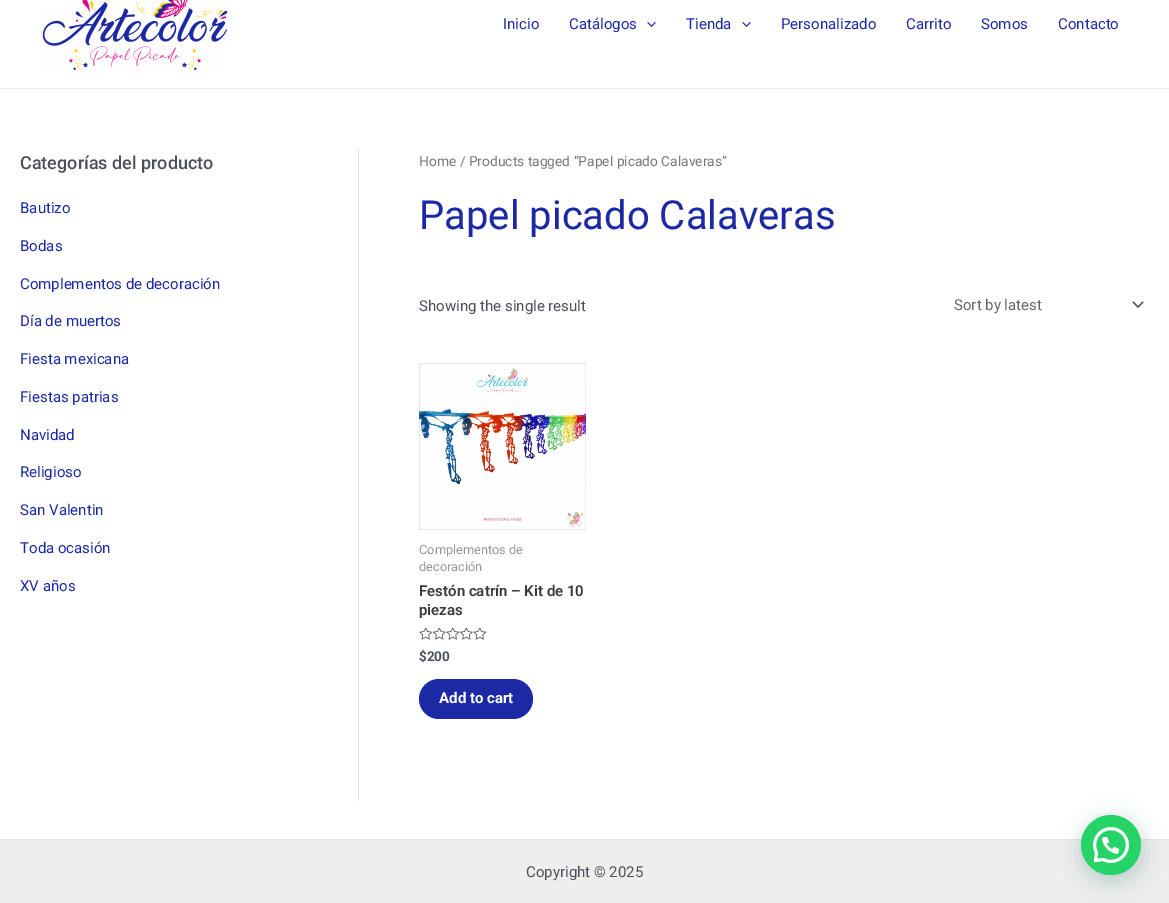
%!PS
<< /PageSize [1169 903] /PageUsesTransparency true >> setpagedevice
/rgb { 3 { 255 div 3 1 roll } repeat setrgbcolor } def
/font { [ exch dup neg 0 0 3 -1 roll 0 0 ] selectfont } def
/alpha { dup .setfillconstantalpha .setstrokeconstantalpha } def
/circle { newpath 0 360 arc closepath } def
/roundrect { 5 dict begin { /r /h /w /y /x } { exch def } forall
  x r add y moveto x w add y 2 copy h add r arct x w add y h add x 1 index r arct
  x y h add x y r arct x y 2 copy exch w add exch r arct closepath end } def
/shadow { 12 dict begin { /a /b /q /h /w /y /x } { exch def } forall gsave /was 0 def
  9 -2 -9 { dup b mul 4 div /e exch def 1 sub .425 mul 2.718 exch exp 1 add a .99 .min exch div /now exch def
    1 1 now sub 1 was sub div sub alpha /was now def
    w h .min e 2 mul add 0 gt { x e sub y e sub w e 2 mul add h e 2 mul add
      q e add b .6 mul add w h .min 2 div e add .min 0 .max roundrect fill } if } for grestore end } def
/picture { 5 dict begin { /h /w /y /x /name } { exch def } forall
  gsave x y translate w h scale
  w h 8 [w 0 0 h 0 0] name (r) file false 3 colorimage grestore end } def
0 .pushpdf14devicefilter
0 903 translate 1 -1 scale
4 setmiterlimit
255 255 255 rgb
0 0 1169 903 rectfill
234 234 234 rgb
0 88 1169 1 rectfill
(img/1.rgb) 42 0 186 70 picture
(img/2.rgb) 647 22 9 5 picture
(img/2.rgb) 742 22 9 5 picture
221 221 221 rgb
358 149 1 652 rectfill
(img/3.rgb) 1132 301 12 7 picture
(img/4.rgb) 419 363 167 167 picture
(img/5.rgb) 419 628 68 12 picture
28 41 165 rgb
419 679 114 40 20 roundrect fill
238 238 238 rgb
0 840 1169 63 rectfill
229 229 229 rgb
0 839 1169 1 rectfill
7 94 84 rgb
1082 821 60 60 30 12 0.24 shadow
37 211 102 rgb
1111 845 30 circle fill
(img/6.rgb) 1093 827 36 36 picture
/Roboto-Regular 15 font
28 41 165 rgb
[
  [(Inicio) 503 29]
  [(Catálogos) 569 29]
  [(Tienda) 686 29]
  [(Personalizado) 781 29]
  [(Carrito) 906 29]
  [(Somos) 981 29]
  [(Contacto) 1058 29]
] { aload pop moveto show } forall
/Roboto-Medium 18 font
75 79 88 rgb
20 169 moveto (Categorías del producto) show
/Roboto-Regular 15 font
28 41 165 rgb
[
  [(Bautizo) 20 213]
  [(Bodas) 20 251]
  [(Complementos de decoración) 20 289]
  [(Día de muertos) 20 326]
  [(Fiesta mexicana) 20 364]
  [(Fiestas patrias) 20 402]
  [(Navidad) 20 440]
  [(Religioso) 20 477]
  [(San Valentin) 20 515]
  [(Toda ocasión) 20 553]
  [(XV años) 20 591]
] { aload pop moveto show } forall
/Roboto-Regular 13.8 font
119 119 119 rgb
419 166 moveto (Home / Products tagged “Papel picado Calaveras”) show
/Roboto-Regular 40 font
28 41 165 rgb
419 229 moveto (Papel picado Calaveras) show
/Roboto-Regular 15 font
75 79 88 rgb
419 311 moveto (Showing the single result) show
102 102 102 rgb
954 310 moveto (Sort by latest) show
/Roboto-Regular 12.75 font
147 149 155 rgb
419 554 moveto (Complementos de) show
419 571 moveto (decoración) show
/Roboto-SemiBold 15 font
58 58 58 rgb
419 596 moveto (Festón catrín – Kit de 10) show
419 615 moveto (piezas) show
/Roboto-Bold 13.5 font
75 79 88 rgb
419 661 moveto ($200) show
/Roboto-Bold 15 font
255 255 255 rgb
439 703 moveto (Add to cart) show
/Roboto-Regular 15 font
75 79 88 rgb
526 877 moveto (Copyright © 2025) show
.poppdf14devicefilter showpage
